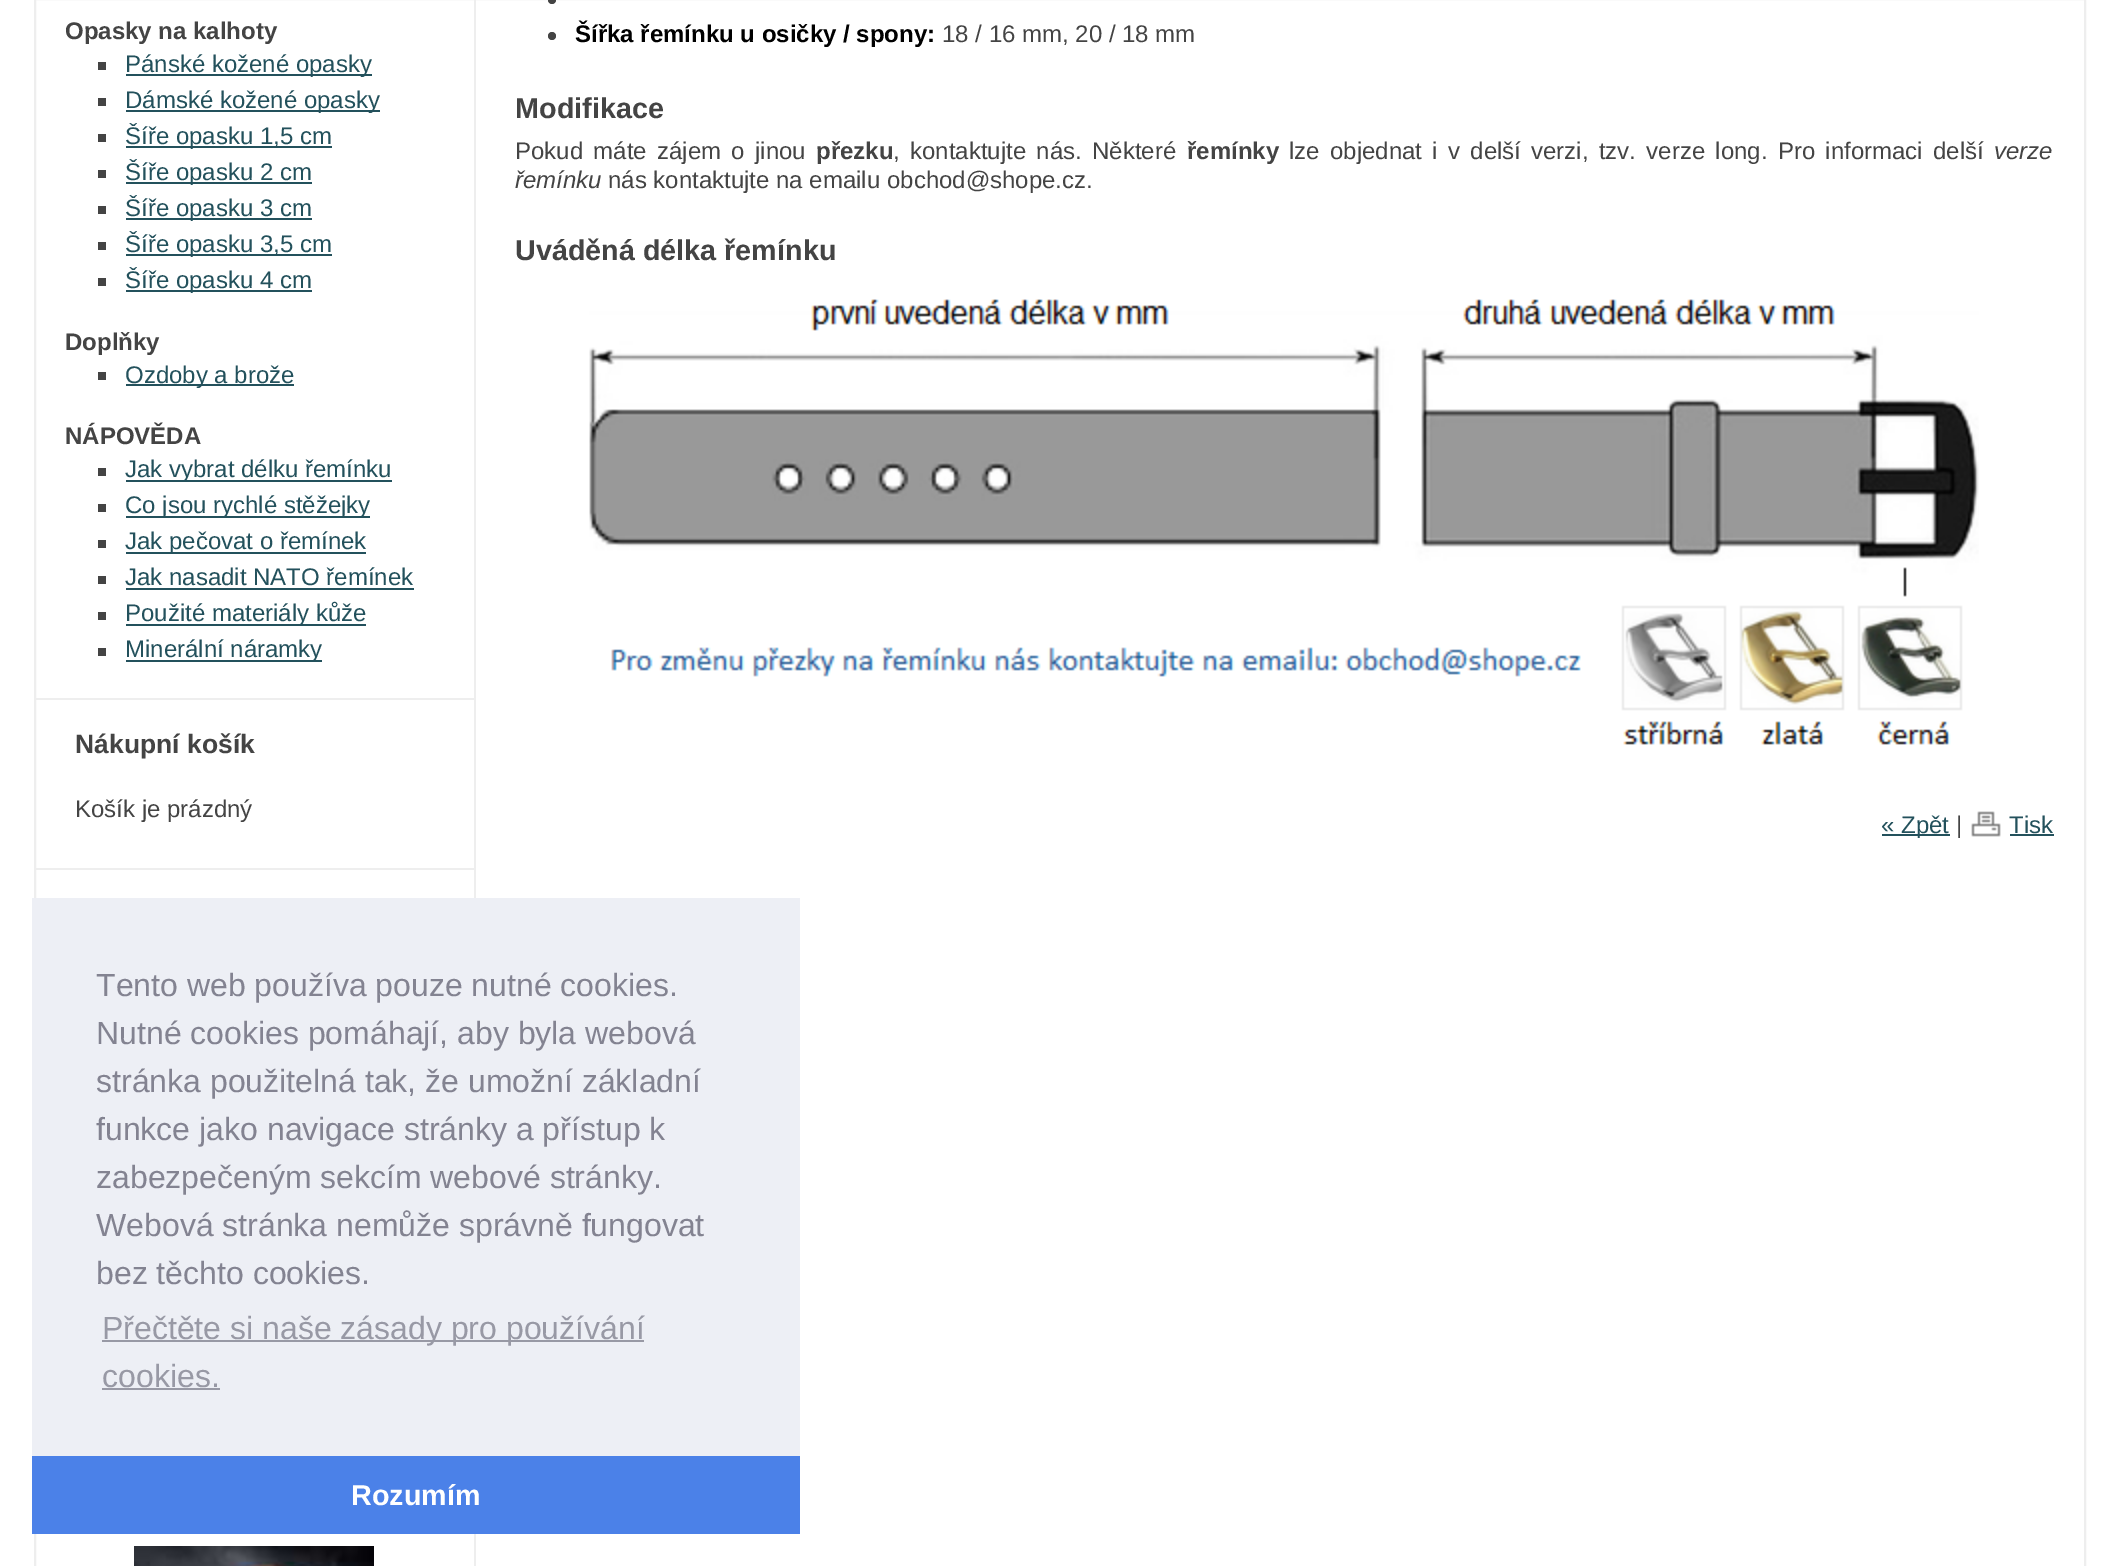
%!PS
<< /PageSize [2117 1566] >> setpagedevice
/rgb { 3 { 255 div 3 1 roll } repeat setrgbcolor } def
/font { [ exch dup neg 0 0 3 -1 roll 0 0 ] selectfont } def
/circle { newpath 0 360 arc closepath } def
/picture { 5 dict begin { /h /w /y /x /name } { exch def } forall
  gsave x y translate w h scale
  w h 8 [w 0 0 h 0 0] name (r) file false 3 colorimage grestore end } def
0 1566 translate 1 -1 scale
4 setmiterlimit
255 255 255 rgb
0 0 2117 1566 rectfill
238 238 238 rgb
2 setlinewidth
35 -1 2050 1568 rectstroke
[
  [474 0 2 898 238 238 238]
  [36 698 440 2 238 238 238]
  [98 62 8 8 68 68 68]
  [126 74 246 2 35 81 92]
  [98 98 8 8 68 68 68]
  [126 110 254 2 35 81 92]
  [98 134 8 8 68 68 68]
  [126 146 206 2 35 81 92]
  [98 170 8 8 68 68 68]
  [126 182 186 2 35 81 92]
  [98 206 8 8 68 68 68]
  [126 218 186 2 35 81 92]
  [98 242 8 8 68 68 68]
  [126 254 206 2 35 81 92]
  [98 278 8 8 68 68 68]
  [126 290 186 2 35 81 92]
  [98 372 8 8 68 68 68]
  [126 384 168 2 35 81 92]
  [98 468 8 8 68 68 68]
  [126 480 266 2 35 81 92]
  [98 504 8 8 68 68 68]
  [126 516 244 2 35 81 92]
  [98 540 8 8 68 68 68]
  [126 552 240 2 35 81 92]
  [98 576 8 8 68 68 68]
  [126 588 288 2 35 81 92]
  [98 612 8 8 68 68 68]
  [126 624 240 2 35 81 92]
  [98 648 8 8 68 68 68]
  [126 660 196 2 35 81 92]
  [36 868 440 2 238 238 238]
  [474 1534 2 32 238 238 238]
] { aload pop rgb rectfill } forall
(img/1.rgb) 134 1546 240 20 picture
68 68 68 rgb
552 0 4 circle fill
552 36 4 circle fill
(img/2.rgb) 589 299 1390 446 picture
35 81 92 rgb
1882 834 68 2 rectfill
(img/3.rgb) 1971 811 30 26 picture
[
  [2010 834 44 2 35 81 92]
  [32 898 768 558 237 239 245]
  [102 1340 542 2 152 153 165]
  [102 1388 118 2 152 153 165]
  [32 1456 768 78 75 129 232]
] { aload pop rgb rectfill } forall
/LiberationSans-Bold 24 font
68 68 68 rgb
65 39 moveto (Opasky na kalhoty) show
/LiberationSans-Regular 24 font
35 81 92 rgb
[
  [(Pánské kožené opasky) 125 72]
  [(Dámské kožené opasky) 125 108]
  [(Šíře opasku 1,5 cm) 125 144]
  [(Šíře opasku 2 cm) 125 180]
  [(Šíře opasku 3 cm) 125 216]
  [(Šíře opasku 3,5 cm) 125 252]
  [(Šíře opasku 4 cm) 125 288]
] { aload pop moveto show } forall
/LiberationSans-Bold 24 font
68 68 68 rgb
65 350 moveto (Doplňky) show
/LiberationSans-Regular 24 font
35 81 92 rgb
125 383 moveto (Ozdoby a brože) show
/LiberationSans-Bold 24 font
68 68 68 rgb
65 444 moveto (NÁPOVĚDA) show
/LiberationSans-Regular 24 font
35 81 92 rgb
[
  [(Jak vybrat délku řemínku) 125 477]
  [(Co jsou rychlé stěžejky) 125 513]
  [(Jak pečovat o řemínek) 125 549]
  [(Jak nasadit NATO řemínek) 125 585]
  [(Použité materiály kůže) 125 621]
  [(Minerální náramky) 125 657]
] { aload pop moveto show } forall
/LiberationSans-Bold 26.5 font
68 68 68 rgb
75 753 moveto (Nákupní košík) show
/LiberationSans-Regular 24 font
75 817 moveto (Košík je prázdný) show
/LiberationSans-Bold 24 font
0 0 0 rgb
575 42 moveto (Šířka řemínku u osičky / spony:) show
/LiberationSans-Regular 24 font
68 68 68 rgb
942 42 moveto (18 / 16 mm, 20 / 18 mm) show
/LiberationSans-Bold 28.75 font
515 118 moveto (Modifikace) show
/LiberationSans-Regular 24 font
515 159 moveto 3.6 0 32 (Pokud máte zájem o jinou) widthshow
/LiberationSans-Bold 24 font
816 159 moveto (přezku) show
/LiberationSans-Regular 24 font
893 159 moveto 3.6 0 32 (, kontaktujte nás. Některé) widthshow
/LiberationSans-Bold 24 font
1187 159 moveto (řemínky) show
/LiberationSans-Regular 24 font
1289 159 moveto 3.6 0 32 (lze objednat i v delší verzi, tzv. verze long. Pro informaci delší) widthshow
/LiberationSans-Italic 24 font
1994 159 moveto (verze) show
515 188 moveto (řemínku) show
/LiberationSans-Regular 24 font
608 188 moveto (nás kontaktujte na emailu obchod@shope.cz.) show
/LiberationSans-Bold 28.75 font
515 260 moveto (Uváděná délka řemínku) show
/LiberationSans-Regular 24 font
35 81 92 rgb
1881 833 moveto (« Zpět) show
68 68 68 rgb
1956 833 moveto (|) show
35 81 92 rgb
2009 833 moveto (Tisk) show
/LiberationSans-Regular 32 font
131 131 145 rgb
[
  [(Tento web používa pouze nutné cookies.) 96 996]
  [(Nutné cookies pomáhají, aby byla webová) 96 1044]
  [(stránka použitelná tak, že umožní základní) 96 1092]
  [(funkce jako navigace stránky a přístup k) 96 1140]
  [(zabezpečeným sekcím webové stránky.) 96 1188]
  [(Webová stránka nemůže správně fungovat) 96 1236]
  [(bez těchto cookies.) 96 1284]
] { aload pop moveto show } forall
152 153 165 rgb
102 1339 moveto (Přečtěte si naše zásady pro používání) show
102 1387 moveto (cookies.) show
/LiberationSans-Bold 28.75 font
255 255 255 rgb
351 1505 moveto (Rozumím) show
showpage
